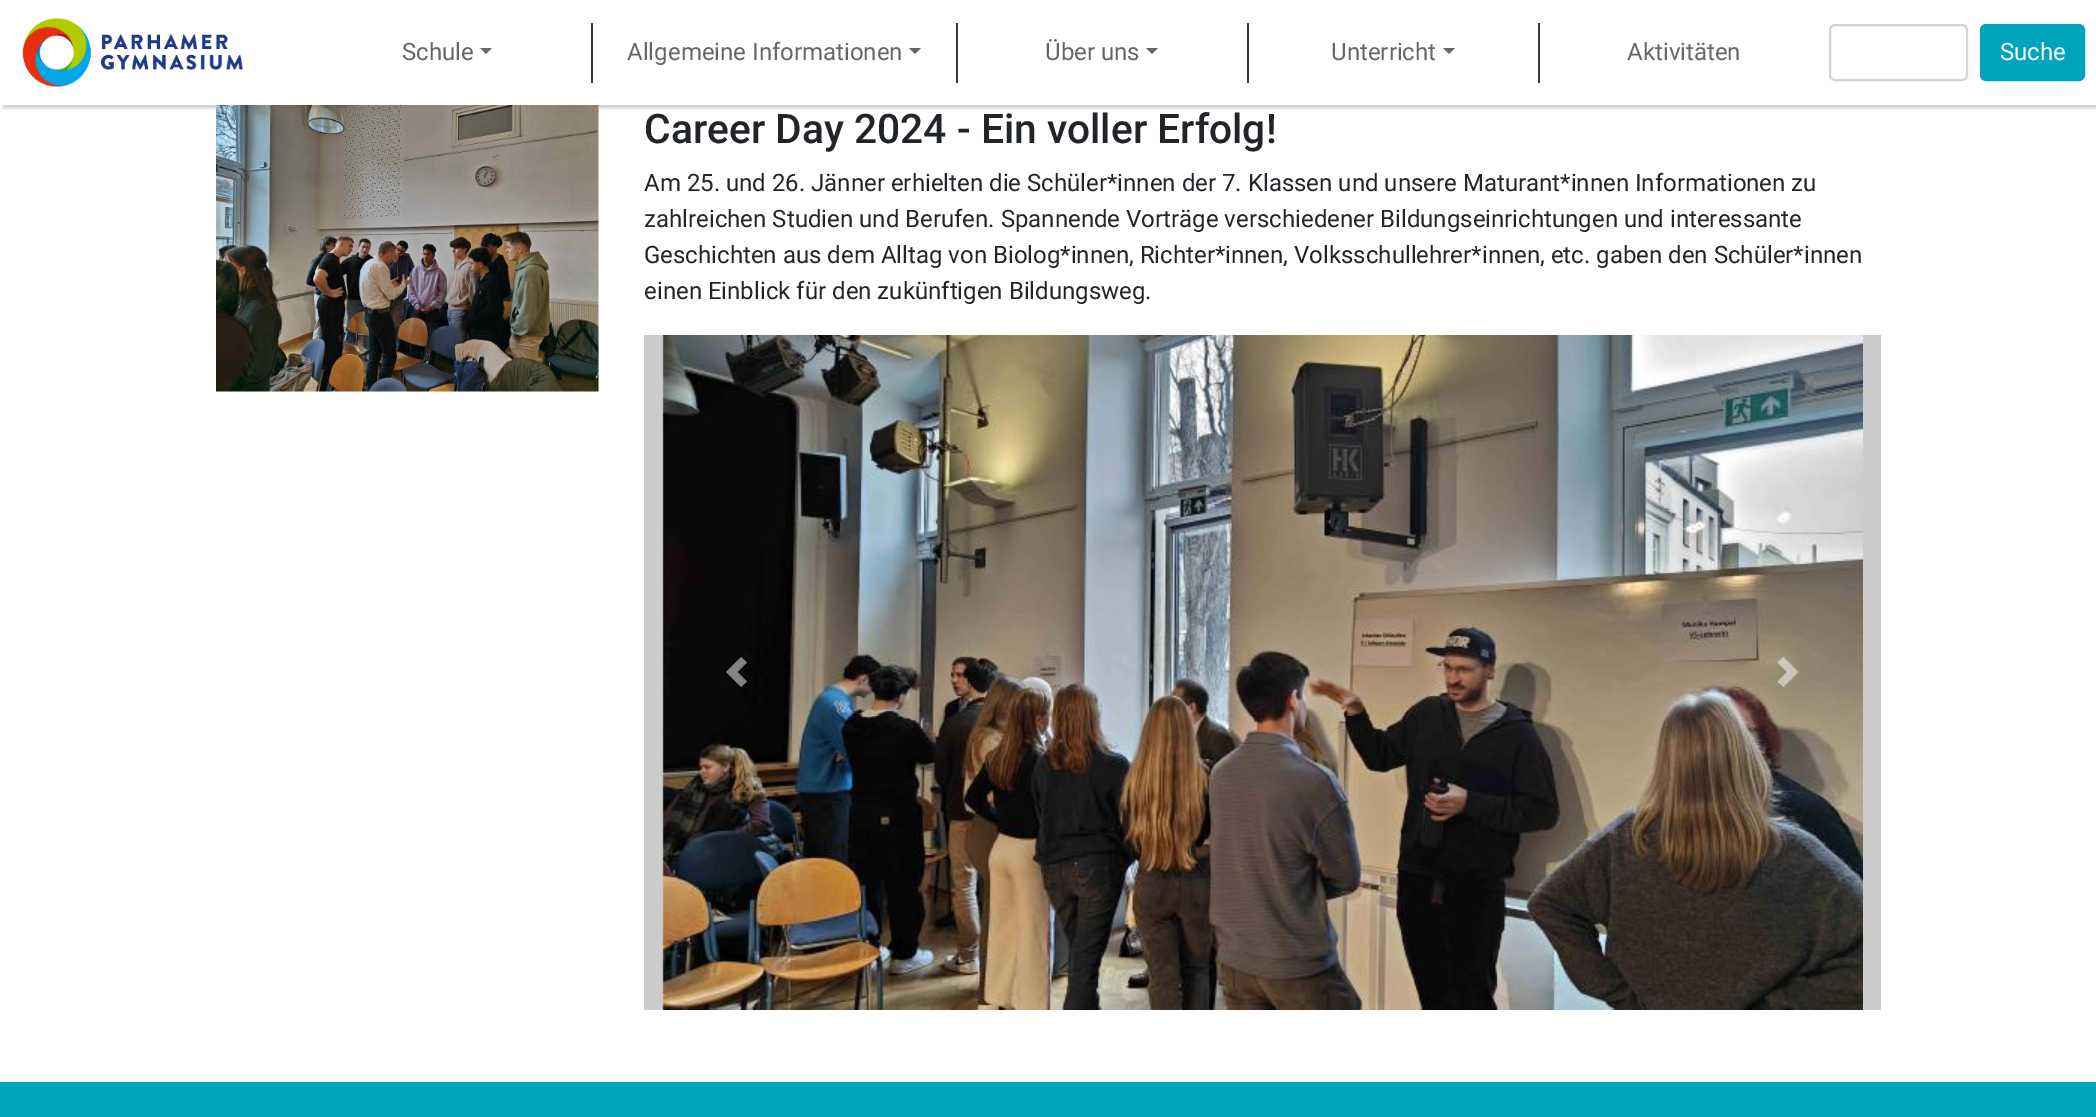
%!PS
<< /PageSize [2096 1117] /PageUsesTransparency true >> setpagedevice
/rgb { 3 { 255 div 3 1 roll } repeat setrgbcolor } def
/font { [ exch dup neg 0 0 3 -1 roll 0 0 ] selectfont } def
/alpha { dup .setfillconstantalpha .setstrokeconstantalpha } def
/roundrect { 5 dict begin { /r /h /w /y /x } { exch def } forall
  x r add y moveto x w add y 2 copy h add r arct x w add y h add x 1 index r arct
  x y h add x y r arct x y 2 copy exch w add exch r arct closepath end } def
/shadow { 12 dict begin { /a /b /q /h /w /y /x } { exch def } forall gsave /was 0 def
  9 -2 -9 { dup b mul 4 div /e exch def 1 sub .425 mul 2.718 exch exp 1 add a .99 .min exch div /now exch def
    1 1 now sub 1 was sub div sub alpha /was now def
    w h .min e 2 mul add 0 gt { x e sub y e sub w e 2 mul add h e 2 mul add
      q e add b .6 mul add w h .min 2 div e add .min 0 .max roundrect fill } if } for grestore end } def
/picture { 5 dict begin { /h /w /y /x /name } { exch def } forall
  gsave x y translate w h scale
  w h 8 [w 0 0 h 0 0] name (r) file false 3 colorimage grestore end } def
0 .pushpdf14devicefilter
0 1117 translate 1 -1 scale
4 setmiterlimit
255 255 255 rgb
0 0 2096 1117 rectfill
gsave
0 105 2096 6 rectclip
204 204 204 rgb
3 3 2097 105 0 1.5 1 shadow
grestore
(img/1.rgb) 22 18 221 69 picture
52 58 64 rgb
591 23 2 60 rectfill
102 102 102 rgb
480 48 moveto 492 48 lineto 486 54 lineto closepath fill
52 58 64 rgb
956 23 2 60 rectfill
102 102 102 rgb
909 48 moveto 921 48 lineto 915 54 lineto closepath fill
52 58 64 rgb
1247 23 2 60 rectfill
102 102 102 rgb
1146 48 moveto 1158 48 lineto 1152 54 lineto closepath fill
52 58 64 rgb
1538 23 2 60 rectfill
102 102 102 rgb
1443 48 moveto 1455 48 lineto 1449 54 lineto closepath fill
206 212 218 rgb
2 setlinewidth
1830 25 137 55 5 roundrect stroke
0 164 191 rgb
1981 25 103 55 5 roundrect gsave fill grestore
stroke
(img/2.rgb) 216 105 383 287 picture
204 204 204 rgb
644 335 1237 675 rectfill
(img/3.rgb) 662 335 1201 675 picture
0.5 alpha
255 255 255 rgb
741 657 moveto 726 672 lineto 741 687 lineto 747 681.5 lineto 737.5 672 lineto 747 662.5 lineto closepath fill
1783.5 657 moveto 1777.5 662.5 lineto 1787 672 lineto 1777.5 681.5 lineto 1783.5 687 lineto 1798.5 672 lineto closepath fill
1 alpha
0 164 191 rgb
0 1082 2096 35 rectfill
/Roboto-Regular 24 font
102 102 102 rgb
[
  [(Schule) 402 60]
  [(Allgemeine Informationen) 627 60]
  [(Über uns) 1045 60]
  [(Unterricht) 1331 60]
  [(Aktivitäten) 1627 60]
] { aload pop moveto show } forall
255 255 255 rgb
2000 60 moveto (Suche) show
/Roboto-Medium 40.75 font
33 37 41 rgb
644 143 moveto (Career Day 2024 - Ein voller Erfolg!) show
/Roboto-Regular 24 font
[
  [(Am 25. und 26. Jänner erhielten die Schüler*innen der 7. Klassen und unsere Maturant*innen Informationen zu) 644 191]
  [(zahlreichen Studien und Berufen. Spannende Vorträge verschiedener Bildungseinrichtungen und interessante) 644 227]
  [(Geschichten aus dem Alltag von Biolog*innen, Richter*innen, Volksschullehrer*innen, etc. gaben den Schüler*innen) 644 263]
  [(einen Einblick für den zukünftigen Bildungsweg.) 644 299]
] { aload pop moveto show } forall
.poppdf14devicefilter showpage
